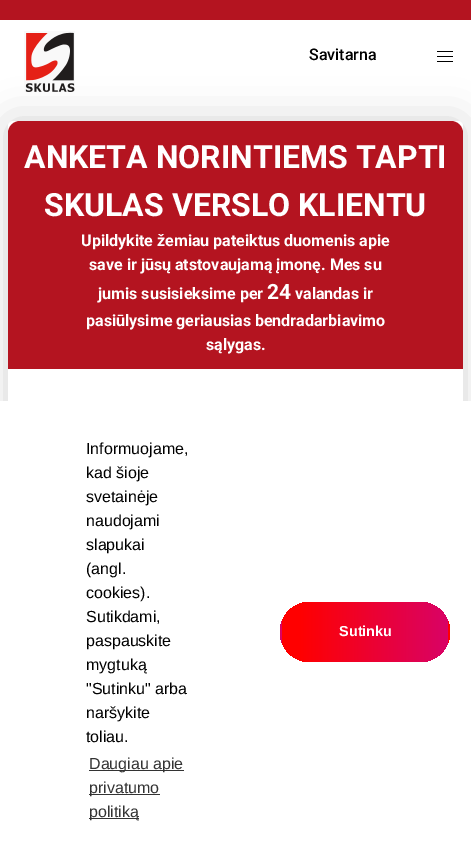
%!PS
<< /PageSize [471 863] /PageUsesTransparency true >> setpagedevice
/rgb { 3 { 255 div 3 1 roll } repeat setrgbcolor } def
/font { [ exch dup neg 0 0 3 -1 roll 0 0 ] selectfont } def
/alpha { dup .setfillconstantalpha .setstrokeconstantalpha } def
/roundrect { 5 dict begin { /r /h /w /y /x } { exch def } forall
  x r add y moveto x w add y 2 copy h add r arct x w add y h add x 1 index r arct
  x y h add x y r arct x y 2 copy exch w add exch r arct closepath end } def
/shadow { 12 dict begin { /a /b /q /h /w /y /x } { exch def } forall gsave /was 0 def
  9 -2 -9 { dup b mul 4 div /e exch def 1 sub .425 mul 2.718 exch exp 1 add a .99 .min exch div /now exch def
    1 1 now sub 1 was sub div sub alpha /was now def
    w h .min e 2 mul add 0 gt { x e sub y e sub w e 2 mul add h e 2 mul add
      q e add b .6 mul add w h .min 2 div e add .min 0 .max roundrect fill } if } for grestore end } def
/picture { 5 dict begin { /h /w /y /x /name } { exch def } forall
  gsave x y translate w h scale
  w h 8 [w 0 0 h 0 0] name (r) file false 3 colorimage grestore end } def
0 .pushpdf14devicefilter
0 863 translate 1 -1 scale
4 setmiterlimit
255 255 255 rgb
0 0 471 863 rectfill
180 20 32 rgb
0 0 471 20 rectfill
211 211 211 rgb
8 121 455 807 5 20 1 shadow
(img/1.rgb) 24 31 51 61 picture
[
  [437 51 16 1 0 0 0]
  [437 56 16 1 0 0 0]
  [437 61 16 1 0 0 0]
] { aload pop rgb rectfill } forall
255 255 255 rgb
8 121 455 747 5 roundrect fill
180 20 32 rgb
20 121 moveto 451 121 lineto 457.5 121 463 126.5 463 133 curveto 463 369 lineto 8 369 lineto 8 133 lineto 8 126.5 13.5 121 20 121 curveto closepath fill
[
  [0 401 471 462 255 255 255]
  [89 770 95 1 51 51 51]
  [89 794 71 1 51 51 51]
  [89 818 50 1 51 51 51]
] { aload pop rgb rectfill } forall
gsave
280 602 170 60 30 roundrect clip newpath
gsave 280 621 moveto 282 621 lineto 282 643 lineto 280 643 lineto closepath clip newpath
<< /ShadingType 2 /ColorSpace /DeviceRGB /Coords [116 632 282 632] /Extend [true true] /Function << /FunctionType 3 /Domain [0 1] /Functions [<< /FunctionType 2 /Domain [0 1] /C0 [1 0 0] /C1 [1 0 0] /N 1 >> << /FunctionType 2 /Domain [0 1] /C0 [1 0 0] /C1 [0.851 0.012 0.4] /N 1 >>] /Bounds [0.1] /Encode [0 1 0 1] >> >> shfill grestore
gsave 282 602 moveto 448 602 lineto 448 662 lineto 282 662 lineto closepath clip newpath
<< /ShadingType 2 /ColorSpace /DeviceRGB /Coords [282 632 448 632] /Extend [true true] /Function << /FunctionType 3 /Domain [0 1] /Functions [<< /FunctionType 2 /Domain [0 1] /C0 [1 0 0] /C1 [1 0 0] /N 1 >> << /FunctionType 2 /Domain [0 1] /C0 [1 0 0] /C1 [0.851 0.012 0.4] /N 1 >>] /Bounds [0.1] /Encode [0 1 0 1] >> >> shfill grestore
gsave 448 621 moveto 450 621 lineto 450 643 lineto 448 643 lineto closepath clip newpath
<< /ShadingType 2 /ColorSpace /DeviceRGB /Coords [448 632 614 632] /Extend [true true] /Function << /FunctionType 3 /Domain [0 1] /Functions [<< /FunctionType 2 /Domain [0 1] /C0 [1 0 0] /C1 [1 0 0] /N 1 >> << /FunctionType 2 /Domain [0 1] /C0 [1 0 0] /C1 [0.851 0.012 0.4] /N 1 >>] /Bounds [0.1] /Encode [0 1 0 1] >> >> shfill grestore
grestore
/Roboto-Medium 16 font
0 0 0 rgb
309 60 moveto (Savitarna) show
/Roboto-Bold 32 font
255 255 255 rgb
24 168 moveto (ANKETA NORINTIEMS TAPTI) show
44 216 moveto (SKULAS VERSLO KLIENTU) show
/Roboto-Bold 16 font
[
  [(Upildykite žemiau pateiktus duomenis apie) 81 246]
  [(save ir jūsų atstovaujamą įmonę. Mes su) 89 270]
  [(jumis susisieksime per) 98 299]
] { aload pop moveto show } forall
/Roboto-Bold 21 font
267 299 moveto (24) show
/Roboto-Bold 16 font
[
  [(valandas ir) 295 299]
  [(pasiūlysime geriausias bendradarbiavimo) 86 326]
  [(sąlygas.) 206 350]
] { aload pop moveto show } forall
/LiberationSans-Regular 16 font
0 0 0 rgb
[
  [(Informuojame,) 86 454]
  [(kad šioje) 86 478]
  [(svetainėje) 86 502]
  [(naudojami) 86 526]
  [(slapukai) 86 550]
  [(\(angl.) 86 574]
  [(cookies\).) 86 598]
  [(Sutikdami,) 86 622]
  [(paspauskite) 86 646]
  [(mygtuką) 86 670]
  [("Sutinku" arba) 86 694]
  [(naršykite) 86 718]
  [(toliau.) 86 742]
] { aload pop moveto show } forall
51 51 51 rgb
[
  [(Daugiau apie) 89 769]
  [(privatumo) 89 793]
  [(politiką) 89 817]
] { aload pop moveto show } forall
/LiberationSans-Bold 14.5 font
255 255 255 rgb
339 636 moveto (Sutinku) show
.poppdf14devicefilter showpage
